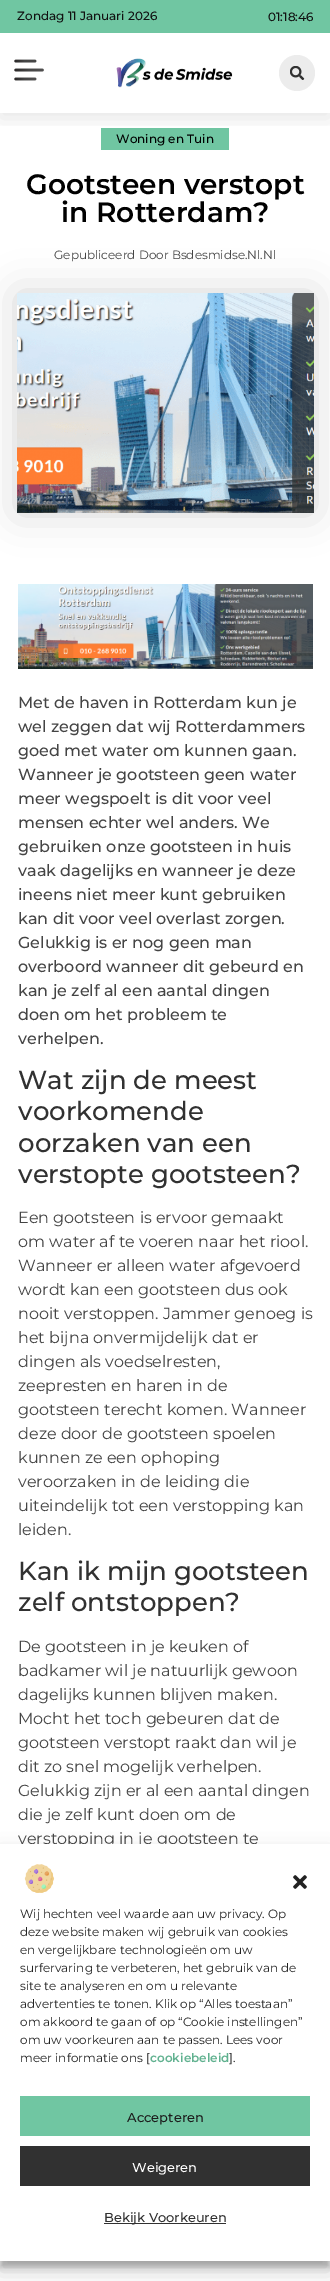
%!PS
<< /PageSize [330 2281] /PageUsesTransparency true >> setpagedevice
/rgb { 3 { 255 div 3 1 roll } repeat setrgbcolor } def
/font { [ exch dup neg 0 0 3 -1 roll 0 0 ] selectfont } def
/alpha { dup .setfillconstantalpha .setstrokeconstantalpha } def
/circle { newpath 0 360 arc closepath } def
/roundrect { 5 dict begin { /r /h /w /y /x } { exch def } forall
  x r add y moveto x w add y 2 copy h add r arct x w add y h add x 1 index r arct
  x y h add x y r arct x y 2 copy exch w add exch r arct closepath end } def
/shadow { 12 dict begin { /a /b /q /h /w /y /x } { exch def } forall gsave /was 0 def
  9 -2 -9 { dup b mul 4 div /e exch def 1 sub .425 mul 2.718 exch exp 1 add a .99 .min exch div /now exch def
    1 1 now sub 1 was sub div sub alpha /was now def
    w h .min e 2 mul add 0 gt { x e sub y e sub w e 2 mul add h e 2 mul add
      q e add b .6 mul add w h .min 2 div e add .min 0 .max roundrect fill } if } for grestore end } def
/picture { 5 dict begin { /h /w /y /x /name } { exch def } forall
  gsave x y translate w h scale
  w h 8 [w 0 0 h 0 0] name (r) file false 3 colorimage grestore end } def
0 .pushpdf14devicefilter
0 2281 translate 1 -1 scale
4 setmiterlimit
255 255 255 rgb
0 0 330 2281 rectfill
112 198 162 rgb
101 128 128 22 rectfill
gsave
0 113 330 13 rectclip
0 0 0 rgb
0 5 330 113 0 10 0.1 shadow
grestore
0 0 330 33 rectfill
(img/1.rgb) 14 59 30 22 picture
(img/2.rgb) 116 58 117 30 picture
236 236 236 rgb
297 73 18 circle fill
(img/3.rgb) 290 66 15 14 picture
0 0 0 rgb
17 293 297 220 0 20 0.16 shadow
(img/4.rgb) 17 293 297 220 picture
(img/5.rgb) 18 584 295 85 picture
0 1850 330 417 0 3 0.23 shadow
0 1854 330 417 0 10 0.19 shadow
/Montserrat-Medium 12 font
17 17 17 rgb
17 20 moveto (Zondag 11 Januari 2026) show
268 21 moveto (01:18:46) show
0 0 0 rgb
116 143 moveto (Woning en Tuin) show
/Montserrat-SemiBold 28 font
26 194 moveto (Gootsteen verstopt) show
61 222 moveto (in Rotterdam?) show
/Montserrat-Regular 12 font
68 68 68 rgb
54 259 moveto (Gepubliceerd Door Bsdesmidse.Nl.Nl) show
/Montserrat-Medium 16 font
[
  [(Met de haven in Rotterdam kun je) 18 708]
  [(wel zeggen dat wij Rotterdammers) 18 732]
  [(goed met water om kunnen gaan.) 18 756]
  [(Wanneer je gootsteen geen water) 18 780]
  [(meer wegspoelt is dit voor veel) 18 804]
  [(mensen echter wel anders. We) 18 828]
  [(gebruiken onze gootsteen in huis) 18 852]
  [(vaak dagelijks en wanneer je deze) 18 876]
  [(ineens niet meer kunt gebruiken) 18 900]
  [(kan dit voor veel overlast zorgen.) 18 924]
  [(Gelukkig is er nog geen man) 18 948]
  [(overboord wanneer dit gebeurd en) 18 972]
  [(kan je zelf al een aantal dingen) 18 996]
  [(doen om het probleem te) 18 1020]
  [(verhelpen.) 18 1044]
] { aload pop moveto show } forall
/Montserrat-Medium 26 font
49 49 49 rgb
[
  [(Wat zijn de meest) 18 1089]
  [(voorkomende) 18 1120]
  [(oorzaken van een) 18 1152]
  [(verstopte gootsteen?) 18 1183]
] { aload pop moveto show } forall
/Montserrat-Regular 16 font
68 68 68 rgb
[
  [(Een gootsteen is ervoor gemaakt) 18 1223]
  [(om water af te voeren naar het riool.) 18 1247]
  [(Wanneer er alleen water afgevoerd) 18 1271]
  [(wordt kan een gootsteen dus ook) 18 1295]
  [(nooit verstoppen. Jammer genoeg is) 18 1319]
  [(het bijna onvermijdelijk dat er) 18 1343]
  [(dingen als voedselresten,) 18 1367]
  [(zeepresten en haren in de) 18 1391]
  [(gootsteen terecht komen. Wanneer) 18 1415]
  [(deze door de gootsteen spoelen) 18 1439]
  [(kunnen ze een ophoping) 18 1463]
  [(veroorzaken in de leiding die) 18 1487]
  [(uiteindelijk tot een verstopping kan) 18 1511]
  [(leiden.) 18 1535]
] { aload pop moveto show } forall
/Montserrat-Medium 26 font
49 49 49 rgb
18 1580 moveto (Kan ik mijn gootsteen) show
18 1611 moveto (zelf ontstoppen?) show
/Montserrat-Regular 16 font
68 68 68 rgb
[
  [(De gootsteen in je keuken of) 18 1652]
  [(badkamer wil je natuurlijk gewoon) 18 1676]
  [(dagelijks kunnen blijven maken.) 18 1700]
  [(Mocht het toch gebeuren dat de) 18 1724]
  [(gootsteen verstopt raakt dan wil je) 18 1748]
  [(dit zo snel mogelijk verhelpen.) 18 1772]
  [(Gelukkig zijn er al een aantal dingen) 18 1796]
  [(die je zelf kunt doen om de) 18 1820]
  [(verstopping in je gootsteen te) 18 1844]
] { aload pop moveto show } forall
255 255 255 rgb
0 1844 330 417 rectfill
(img/6.rgb) 24 1864 31 29 picture
(img/7.rgb) 293 1875 14 14 picture
/Montserrat-Regular 12 font
34 34 34 rgb
[
  [(Wij hechten veel waarde aan uw privacy. Op) 20 1918]
  [(deze website maken wij gebruik van cookies) 20 1936]
  [(en vergelijkbare technologieën om uw) 20 1954]
  [(surfervaring te verbeteren, het gebruik van de) 20 1972]
  [(site te analyseren en om u relevante) 20 1990]
  [(advertenties te tonen. Klik op “Alles toestaan”) 20 2008]
  [(om akkoord te gaan of op “Cookie instellingen”) 20 2026]
  [(om uw voorkeuren aan te passen. Lees voor) 20 2044]
  [(meer informatie ons [) 20 2062]
] { aload pop moveto show } forall
/Montserrat-SemiBold 12 font
96 177 143 rgb
150 2062 moveto (cookiebeleid) show
/Montserrat-Regular 12 font
34 34 34 rgb
229 2062 moveto (].) show
112 198 162 rgb
20 2096 290 40 rectfill
/Montserrat-Medium 13 font
28 28 28 rgb
127 2122 moveto (Accepteren) show
49 49 49 rgb
20 2146 290 40 rectfill
255 255 255 rgb
132 2172 moveto (Weigeren) show
49 49 49 rgb
104 2223 122 1 rectfill
104 2222 moveto (Bekijk Voorkeuren) show
.poppdf14devicefilter showpage
